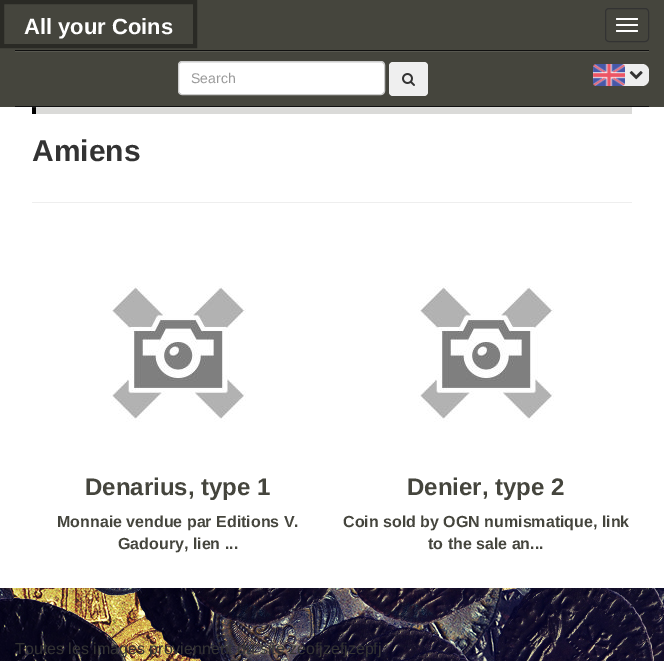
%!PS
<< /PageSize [664 661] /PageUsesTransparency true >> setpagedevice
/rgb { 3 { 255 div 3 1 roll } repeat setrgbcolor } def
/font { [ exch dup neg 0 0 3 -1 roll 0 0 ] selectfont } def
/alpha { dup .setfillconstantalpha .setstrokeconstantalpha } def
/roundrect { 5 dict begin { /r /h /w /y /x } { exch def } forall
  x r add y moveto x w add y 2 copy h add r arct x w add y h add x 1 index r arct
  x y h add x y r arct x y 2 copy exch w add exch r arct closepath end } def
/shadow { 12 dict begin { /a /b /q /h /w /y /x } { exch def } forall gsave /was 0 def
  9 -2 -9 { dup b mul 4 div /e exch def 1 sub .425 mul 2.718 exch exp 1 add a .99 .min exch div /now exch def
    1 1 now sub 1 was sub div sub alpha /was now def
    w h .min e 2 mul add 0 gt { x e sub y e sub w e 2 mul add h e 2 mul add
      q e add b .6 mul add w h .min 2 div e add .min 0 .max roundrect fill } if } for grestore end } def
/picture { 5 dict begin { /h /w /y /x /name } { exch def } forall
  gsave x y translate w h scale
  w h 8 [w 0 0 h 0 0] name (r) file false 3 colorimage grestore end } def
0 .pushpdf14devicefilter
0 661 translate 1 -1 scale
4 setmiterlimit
255 255 255 rgb
0 0 664 661 rectfill
(img/1.rgb) 0 588 664 73 picture
0 0 0 rgb
0 -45 664 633 0 15 0.1 shadow
69 69 61 rgb
0 0 664 107 rectfill
42 42 37 rgb
4 setlinewidth
2 2 193 44 rectstroke
51 51 51 rgb
1 setlinewidth
605.5 8.5 43 33 3.5 roundrect stroke
255 255 255 rgb
616 18 22 2 1 roundrect fill
616 24 22 2 1 roundrect fill
616 30 22 2 1 roundrect fill
[
  [0 107 664 481 255 255 255]
  [36 107 596 7 218 218 216]
  [32 107 4 7 0 0 0]
] { aload pop rgb rectfill } forall
0.1 alpha
[
  [32 107 600 1 255 255 255]
] { aload pop rgb rectfill } forall
1 alpha
[
  [15 51 634 1 88 88 80]
  [15 50 634 1 16 16 16]
  [15 106 634 1 16 16 16]
] { aload pop rgb rectfill } forall
255 255 255 rgb
179 62 205 32 3 roundrect fill
0.07 alpha
0 0 0 rgb
182 63 moveto 381 63 lineto 383 63 384 64 384 66 curveto 384 64 383 62 381 62 curveto 182 62 lineto 180 62 179 64 179 66 curveto 179 64 180 63 182 63 curveto closepath fill
1 alpha
204 204 204 rgb
178.5 61.5 206 33 3.5 roundrect stroke
239 239 239 rgb
389 62 39 34 4 roundrect fill
(img/2.rgb) 402 73 13 13 picture
238 238 238 rgb
593 64 56 22 7 roundrect fill
(img/3.rgb) 593 64 32 22 picture
(img/4.rgb) 629 71 14 9 picture
32 202 600 1 rectfill
(img/5.rgb) 110 286 136 136 picture
(img/5.rgb) 418 286 136 136 picture
/LiberationSans-Bold 22 font
255 255 255 rgb
24 34 moveto (All your Coins) show
/LiberationSans-Regular 14 font
153 153 153 rgb
191 83 moveto (Search) show
/LiberationSans-Bold 30 font
51 51 51 rgb
32 161 moveto (Amiens) show
/LiberationSans-Bold 24 font
69 69 61 rgb
85 495 moveto (Denarius, type 1) show
/LiberationSans-Bold 16 font
57 527 moveto (Monnaie vendue par Editions V.) show
118 549 moveto (Gadoury, lien ...) show
/LiberationSans-Bold 24 font
407 495 moveto (Denier, type 2) show
/LiberationSans-Bold 16 font
343 527 moveto (Coin sold by OGN numismatique, link) show
428 549 moveto (to the sale an...) show
/LiberationSans-Regular 16 font
51 51 51 rgb
15 654 moveto (Toutes les images proviennent du site zeofjzefjzepfj) show
.poppdf14devicefilter showpage
